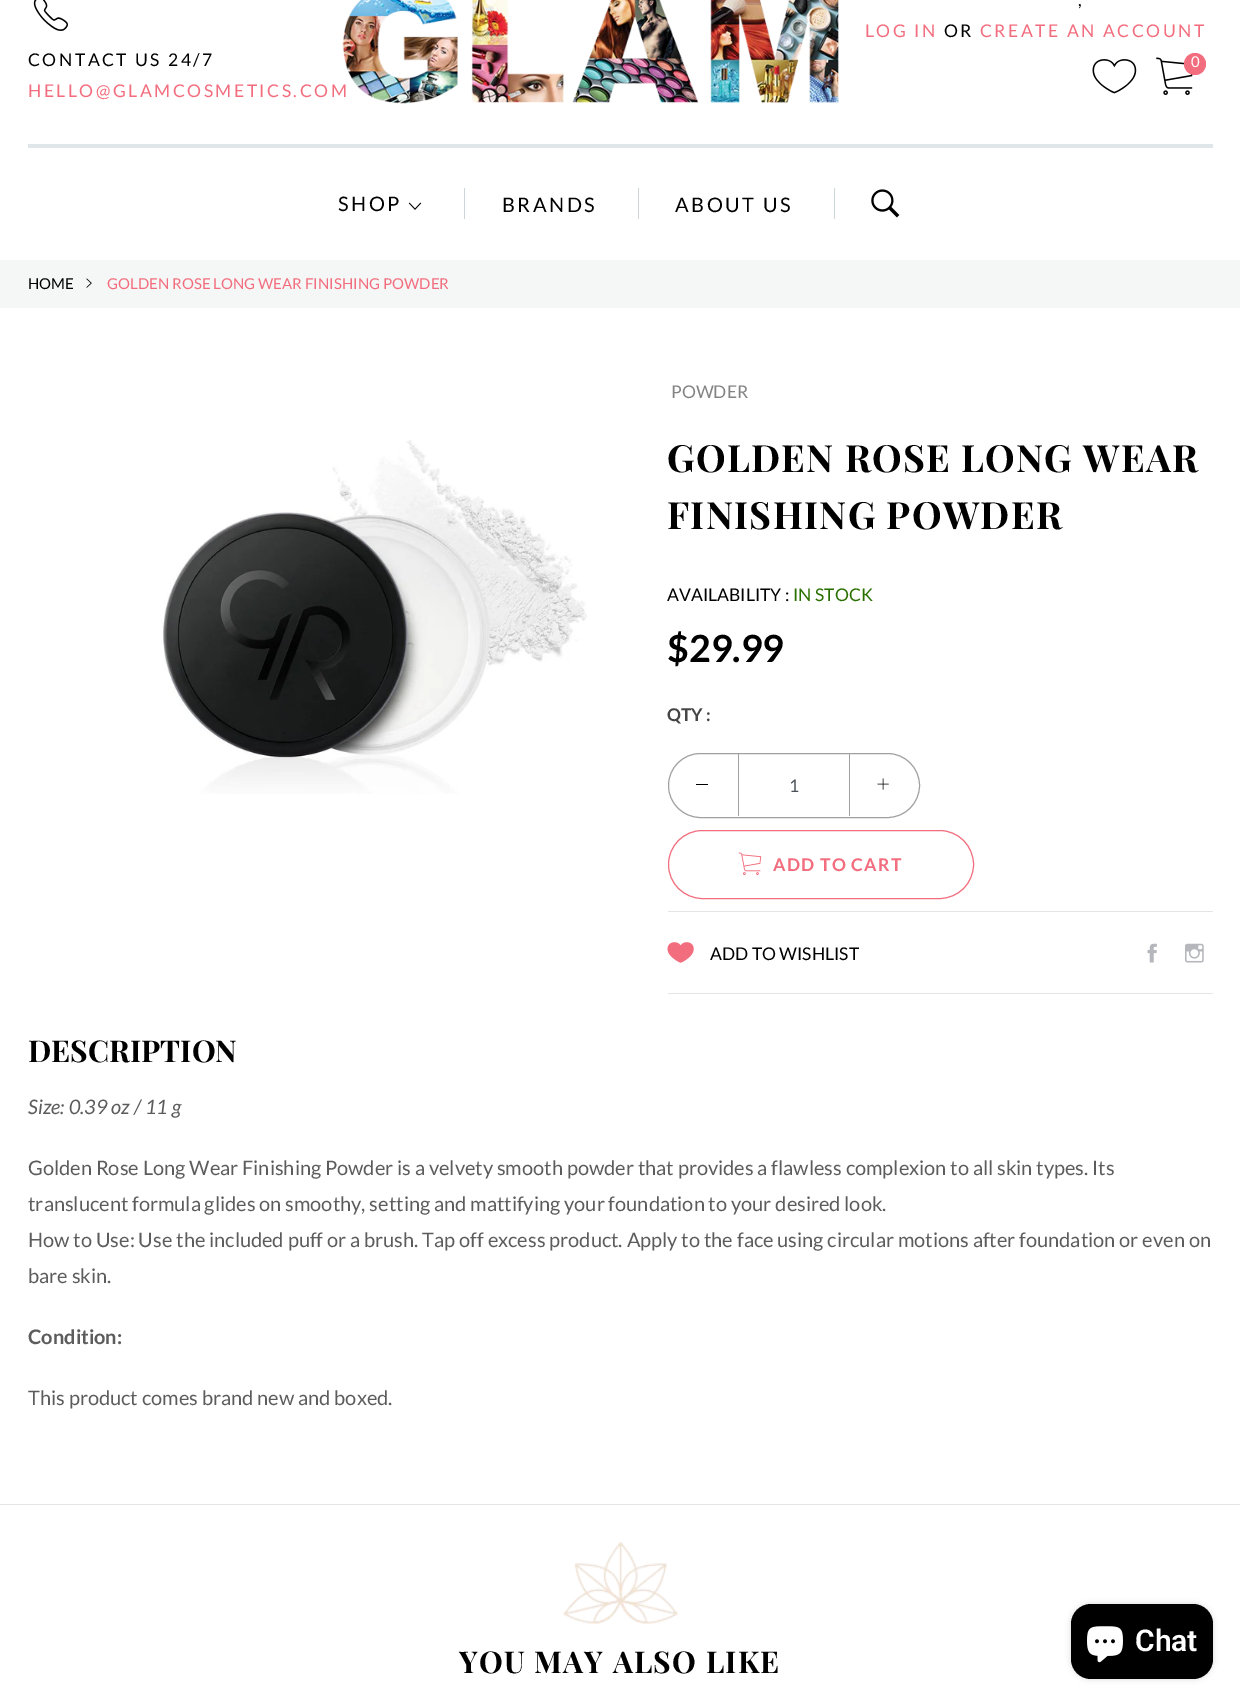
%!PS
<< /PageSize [1240 1704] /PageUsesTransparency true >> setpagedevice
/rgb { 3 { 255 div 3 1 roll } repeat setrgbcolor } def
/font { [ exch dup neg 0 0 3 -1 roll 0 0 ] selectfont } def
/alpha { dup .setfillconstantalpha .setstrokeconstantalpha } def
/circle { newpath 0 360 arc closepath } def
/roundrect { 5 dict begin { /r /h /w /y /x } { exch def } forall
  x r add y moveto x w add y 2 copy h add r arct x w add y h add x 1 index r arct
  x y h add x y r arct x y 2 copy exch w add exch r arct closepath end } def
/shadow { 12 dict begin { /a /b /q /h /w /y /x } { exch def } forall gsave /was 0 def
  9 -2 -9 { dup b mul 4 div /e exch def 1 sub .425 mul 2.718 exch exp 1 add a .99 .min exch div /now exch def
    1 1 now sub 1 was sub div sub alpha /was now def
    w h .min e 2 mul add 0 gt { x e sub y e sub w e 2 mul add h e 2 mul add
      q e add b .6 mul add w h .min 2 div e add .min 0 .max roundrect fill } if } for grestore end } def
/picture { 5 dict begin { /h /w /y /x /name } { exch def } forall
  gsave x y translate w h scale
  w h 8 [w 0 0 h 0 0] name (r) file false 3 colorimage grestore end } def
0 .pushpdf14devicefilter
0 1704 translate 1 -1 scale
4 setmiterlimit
255 255 255 rgb
0 0 1240 1704 rectfill
224 231 234 rgb
28 144 1185 4 rectfill
(img/1.rgb) 342 0 497 104 picture
(img/2.rgb) 1092 59 45 35 picture
(img/3.rgb) 1156 57 37 38 picture
242 109 125 rgb
1195 64 11 circle fill
(img/4.rgb) 33 0 35 31 picture
(img/5.rgb) 408 202 14 8 picture
[
  [464 188 1 31 204 213 217]
  [638 188 1 31 204 213 217]
  [834 188 1 31 204 213 217]
] { aload pop rgb rectfill } forall
(img/6.rgb) 871 189 29 29 picture
245 246 246 rgb
0 260 1240 48 rectfill
(img/7.rgb) 86 278 6 10 picture
(img/8.rgb) 161 440 426 354 picture
161 161 161 rgb
668.5 753.5 251 64 32 roundrect stroke
[
  [696 784 12 1 0 0 0]
  [849 754 1 62 161 161 161]
  [738 754 1 62 161 161 161]
] { aload pop rgb rectfill } forall
(img/9.rgb) 877 778 12 12 picture
242 109 125 rgb
668.5 830.5 305 68 34 roundrect stroke
(img/10.rgb) 738 852 24 23 picture
229 229 229 rgb
668 911 545 1 rectfill
668 993 545 1 rectfill
(img/11.rgb) 667 942 27 21 picture
(img/12.rgb) 1147 943 10 20 picture
(img/13.rgb) 1185 943 19 20 picture
0 1504 1240 1 rectfill
(img/14.rgb) 563 1542 115 82 picture
0 0 0 rgb
1071 1604 142 75 20 3 0.15 shadow
1071 1604 142 75 20 roundrect fill
(img/15.rgb) 1087 1626 36 37 picture
/Lato-Regular 17.5 font
1078 6 moveto 2.5 0 (,) ashow
242 109 125 rgb
865 37 moveto 2.5 0 (LOG IN) ashow
0 0 0 rgb
944 37 moveto 2.5 0 (OR) ashow
242 109 125 rgb
980 37 moveto 2.5 0 (CREATE AN ACCOUNT) ashow
/Lato-Regular 15 font
255 255 255 rgb
1191 67 moveto 2.5 0 (0) ashow
/Lato-Regular 17.5 font
0 0 0 rgb
28 66 moveto 2.5 0 (CONTACT US 24/7) ashow
242 109 125 rgb
28 97 moveto 2.5 0 (HELLO@GLAMCOSMETICS.COM) ashow
/Lato-Regular 20 font
0 0 0 rgb
338 211 moveto 2.5 0 (SHOP) ashow
502 212 moveto 2.5 0 (BRANDS) ashow
675 212 moveto 2.5 0 (ABOUT US) ashow
/Lato-Regular 15 font
28 289 moveto (HOME) show
242 109 125 rgb
107 289 moveto (GOLDEN ROSE LONG WEAR FINISHING POWDER) show
/Lato-Regular 17.5 font
131 131 131 rgb
671 398 moveto (POWDER) show
/PlayfairDisplay-Bold 37.5 font
0 0 0 rgb
667 472 moveto 1.25 0 (GOLDEN ROSE LONG WEAR) ashow
667 529 moveto 1.25 0 (FINISHING POWDER) ashow
/Lato-Regular 17.5 font
667 601 moveto (AVAILABILITY :) show
42 112 0 rgb
793 601 moveto (IN STOCK) show
/Lato-Bold 37.5 font
0 0 0 rgb
667 662 moveto ($29.99) show
/Lato-Bold 17.5 font
69 69 69 rgb
667 721 moveto (QTY :) show
/Lato-Regular 17.5 font
73 80 87 rgb
789 792 moveto (1) show
/Lato-Bold 17.5 font
242 109 125 rgb
773 871 moveto 1.25 0 (ADD TO CART) ashow
/Lato-Regular 17.5 font
0 0 0 rgb
710 960 moveto (ADD TO WISHLIST) show
/PlayfairDisplay-Bold 30 font
28 1062 moveto (DESCRIPTION) show
/Lato-Italic 20 font
92 92 92 rgb
28 1114 moveto (Size: 0.39 oz / 11 g) show
/Lato-Regular 20 font
[
  [(Golden Rose Long Wear Finishing Powder is a velvety smooth powder that provides a flawless complexion to all skin types. Its) 28 1175]
  [(translucent formula glides on smoothy, setting and mattifying your foundation to your desired look.) 28 1211]
  [(How to Use: Use the included puff or a brush. Tap off excess product. Apply to the face using circular motions after foundation or even on) 28 1247]
  [(bare skin.) 28 1283]
] { aload pop moveto show } forall
/Lato-Bold 20 font
28 1344 moveto (Condition:) show
/Lato-Regular 20 font
28 1405 moveto (This product comes brand new and boxed.) show
/PlayfairDisplay-Bold 30 font
0 0 0 rgb
459 1673 moveto 1.25 0 (YOU MAY ALSO LIKE) ashow
/Roboto-SemiBold 30 font
255 255 255 rgb
1135 1651 moveto (Chat) show
.poppdf14devicefilter showpage
